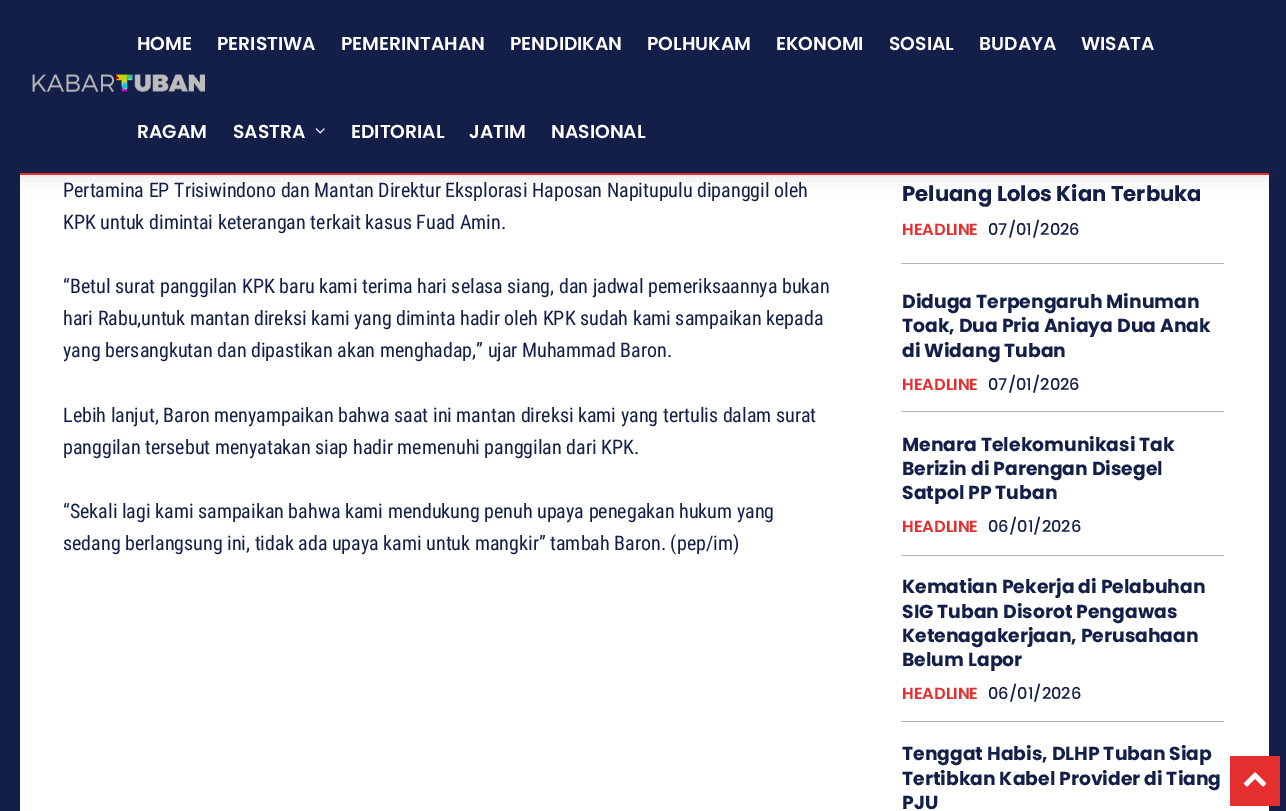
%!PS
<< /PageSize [1286 811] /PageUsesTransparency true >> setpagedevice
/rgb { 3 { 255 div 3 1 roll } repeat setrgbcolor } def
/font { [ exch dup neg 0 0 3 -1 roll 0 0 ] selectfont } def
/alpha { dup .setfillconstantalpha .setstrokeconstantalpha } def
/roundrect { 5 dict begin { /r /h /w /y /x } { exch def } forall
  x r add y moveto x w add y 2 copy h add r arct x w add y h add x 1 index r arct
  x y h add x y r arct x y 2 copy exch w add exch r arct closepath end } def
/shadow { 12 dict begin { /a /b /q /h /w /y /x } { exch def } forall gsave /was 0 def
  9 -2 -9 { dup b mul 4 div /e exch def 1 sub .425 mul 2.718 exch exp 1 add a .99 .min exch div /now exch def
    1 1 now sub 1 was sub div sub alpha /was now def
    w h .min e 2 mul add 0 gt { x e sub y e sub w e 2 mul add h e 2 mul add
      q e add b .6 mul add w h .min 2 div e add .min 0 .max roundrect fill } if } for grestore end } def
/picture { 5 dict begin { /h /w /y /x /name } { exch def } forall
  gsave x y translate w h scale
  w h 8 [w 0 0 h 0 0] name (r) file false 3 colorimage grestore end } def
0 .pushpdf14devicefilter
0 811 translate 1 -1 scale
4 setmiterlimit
19 31 73 rgb
0 0 1286 811 rectfill
(img/1.rgb) 32 74 173 18 picture
229 46 46 rgb
20 173 1249 2 rectfill
255 255 255 rgb
20 175 1249 636 rectfill
gsave
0 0 moveto 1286 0 lineto 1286 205 lineto 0 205 lineto closepath 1 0 moveto 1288 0 lineto 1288 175 lineto 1 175 lineto closepath eoclip newpath
0 0 0 rgb
1 0 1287 175 0 9.5 0.12 shadow
grestore
(img/2.rgb) 315 128 10 6 picture
[
  [901 263 323 1 177 180 188]
  [901 411 323 1 177 180 188]
  [901 555 323 1 177 180 188]
  [901 721 323 1 177 180 188]
  [1230 756 50 50 229 46 46]
] { aload pop rgb rectfill } forall
(img/3.rgb) 1243 772 24 15 picture
/Poppins-SemiBold 18.75 font
255 255 255 rgb
[
  [(HOME) 137 50]
  [(PERISTIWA) 217 50]
  [(PEMERINTAHAN) 341 50]
  [(PENDIDIKAN) 510 50]
  [(POLHUKAM) 647 50]
  [(EKONOMI) 776 50]
  [(SOSIAL) 889 50]
  [(BUDAYA) 979 50]
  [(WISATA) 1081 50]
  [(RAGAM) 137 138]
  [(SASTRA) 233 138]
  [(EDITORIAL) 351 138]
  [(JATIM) 469 138]
  [(NASIONAL) 551 138]
] { aload pop moveto show } forall
/RobotoCondensed-Regular 20 font
19 31 73 rgb
[
  [(Pertamina EP Trisiwindono dan Mantan Direktur Eksplorasi Haposan Napitupulu dipanggil oleh) 63 197]
  [(KPK untuk dimintai keterangan terkait kasus Fuad Amin.) 63 229]
  [(“Betul surat panggilan KPK baru kami terima hari selasa siang, dan jadwal pemeriksaannya bukan) 63 293]
  [(hari Rabu,untuk mantan direksi kami yang diminta hadir oleh KPK sudah kami sampaikan kepada) 63 325]
  [(yang bersangkutan dan dipastikan akan menghadap,” ujar Muhammad Baron.) 63 357]
  [(Lebih lanjut, Baron menyampaikan bahwa saat ini mantan direksi kami yang tertulis dalam surat) 63 422]
  [(panggilan tersebut menyatakan siap hadir memenuhi panggilan dari KPK.) 63 454]
  [(“Sekali lagi kami sampaikan bahwa kami mendukung penuh upaya penegakan hukum yang) 63 518]
  [(sedang berlangsung ini, tidak ada upaya kami untuk mangkir” tambah Baron. \(pep/im\)) 63 550]
] { aload pop moveto show } forall
/Poppins-Bold 21.25 font
902 201 moveto (Peluang Lolos Kian Terbuka) show
/Poppins-SemiBold 16.25 font
229 46 46 rgb
902 235 moveto (HEADLINE) show
/Poppins-Medium 16.25 font
19 31 73 rgb
988 235 moveto (07/01/2026) show
/Poppins-Bold 18.75 font
[
  [(Diduga Terpengaruh Minuman) 902 308]
  [(Toak, Dua Pria Aniaya Dua Anak) 902 332]
  [(di Widang Tuban) 902 357]
] { aload pop moveto show } forall
/Poppins-SemiBold 16.25 font
229 46 46 rgb
902 390 moveto (HEADLINE) show
/Poppins-Medium 16.25 font
19 31 73 rgb
988 390 moveto (07/01/2026) show
/Poppins-Bold 18.75 font
[
  [(Menara Telekomunikasi Tak) 902 451]
  [(Berizin di Parengan Disegel) 902 475]
  [(Satpol PP Tuban) 902 499]
] { aload pop moveto show } forall
/Poppins-SemiBold 16.25 font
229 46 46 rgb
902 532 moveto (HEADLINE) show
/Poppins-Medium 16.25 font
19 31 73 rgb
988 532 moveto (06/01/2026) show
/Poppins-Bold 18.75 font
[
  [(Kematian Pekerja di Pelabuhan) 902 593]
  [(SIG Tuban Disorot Pengawas) 902 618]
  [(Ketenagakerjaan, Perusahaan) 902 642]
  [(Belum Lapor) 902 666]
] { aload pop moveto show } forall
/Poppins-SemiBold 16.25 font
229 46 46 rgb
902 699 moveto (HEADLINE) show
/Poppins-Medium 16.25 font
19 31 73 rgb
988 699 moveto (06/01/2026) show
/Poppins-Bold 18.75 font
[
  [(Tenggat Habis, DLHP Tuban Siap) 902 760]
  [(Tertibkan Kabel Provider di Tiang) 902 785]
  [(PJU) 902 809]
] { aload pop moveto show } forall
.poppdf14devicefilter showpage
